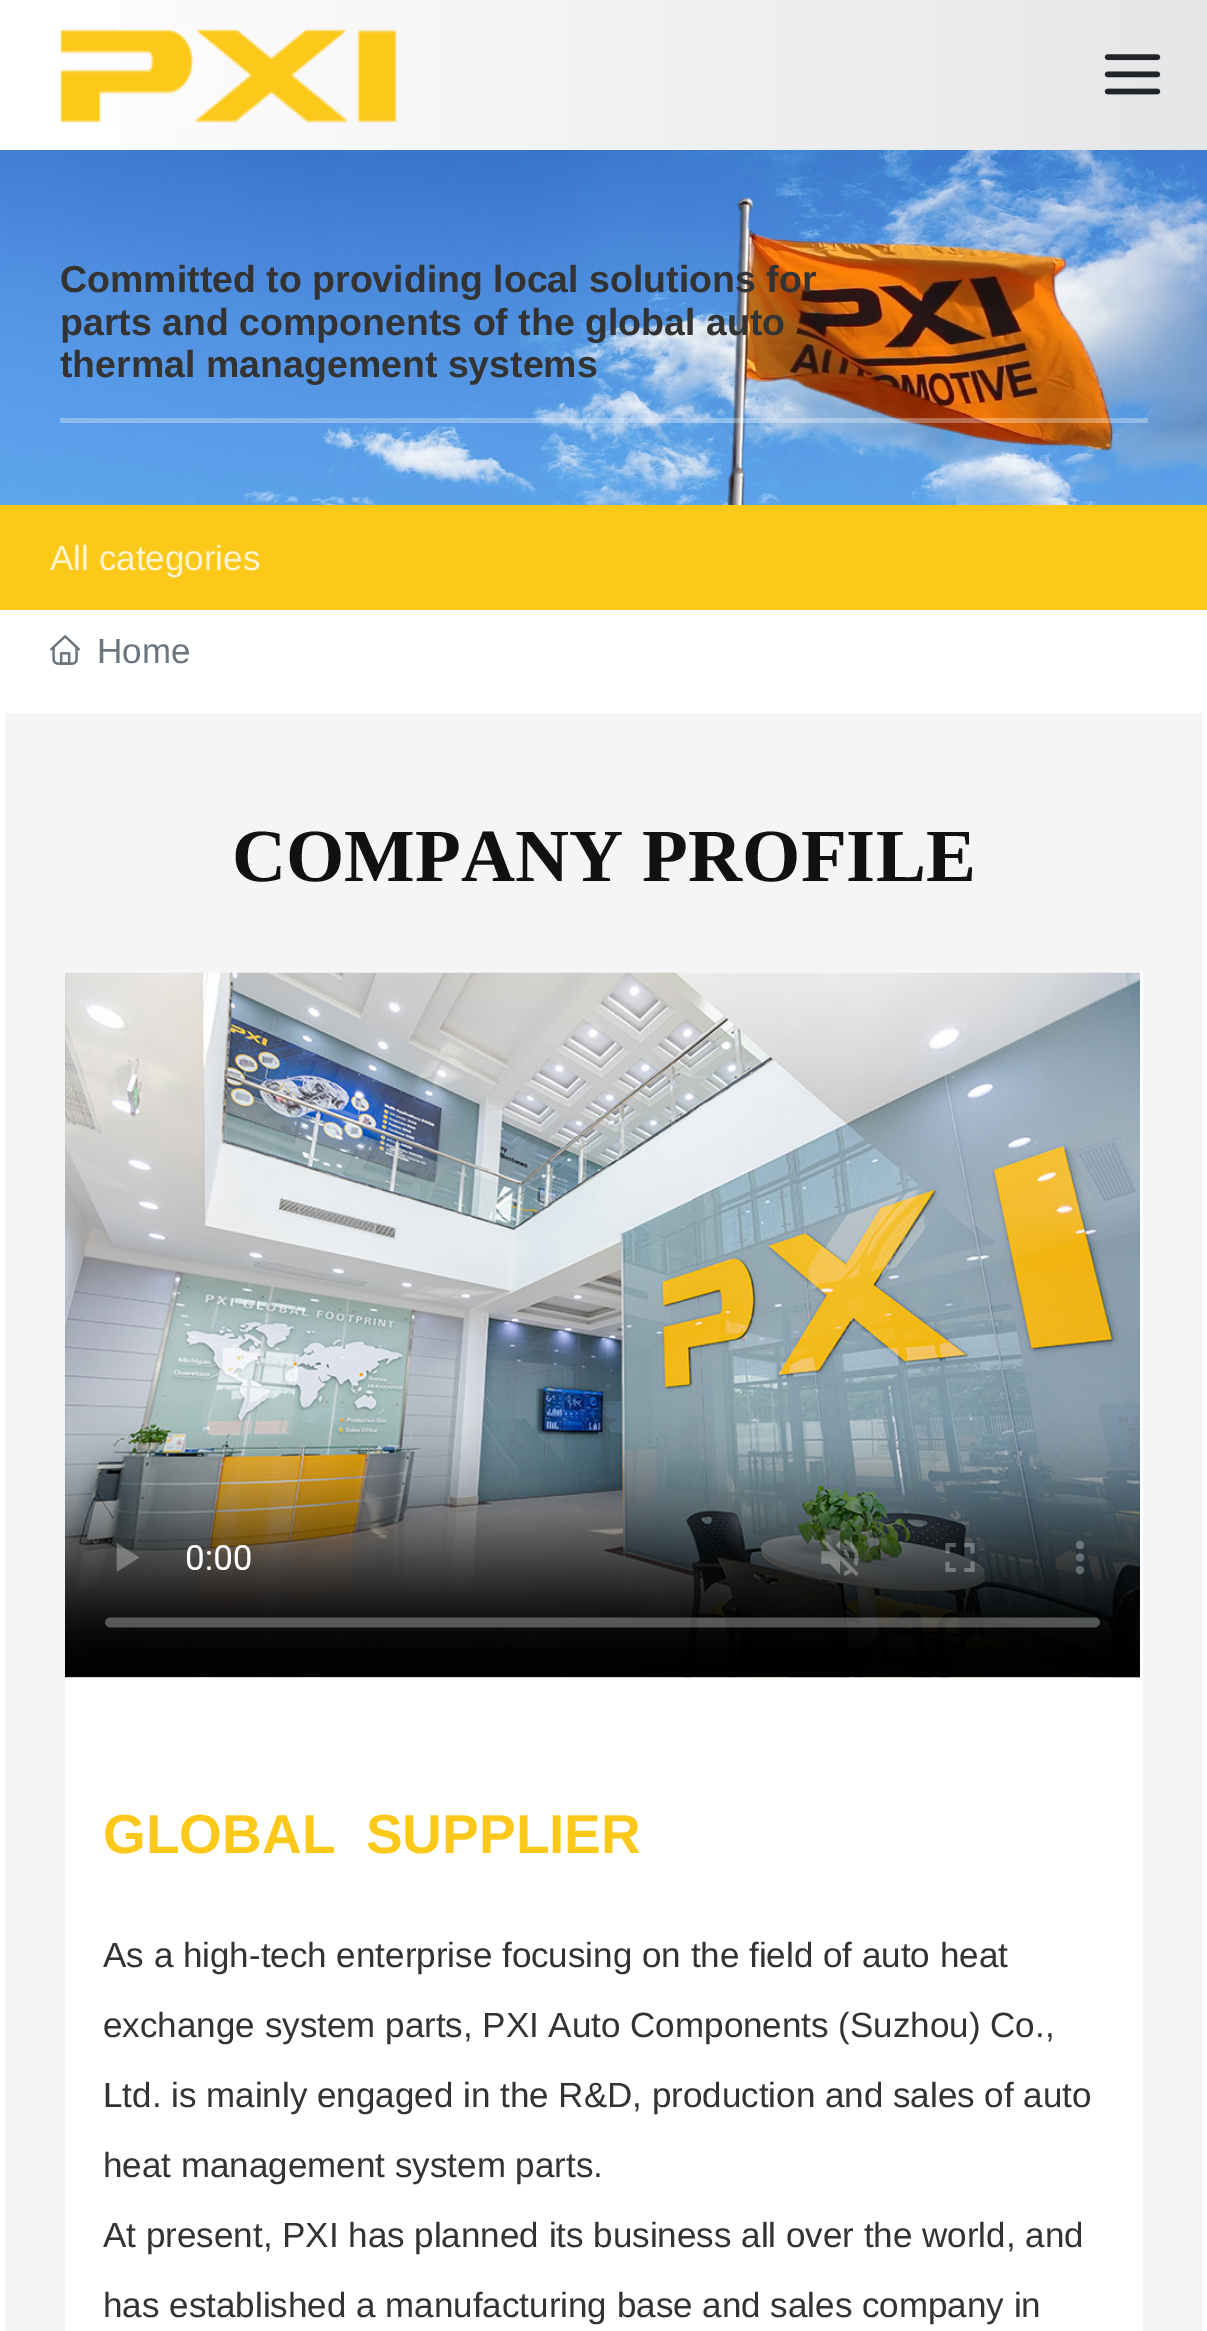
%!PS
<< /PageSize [1207 2331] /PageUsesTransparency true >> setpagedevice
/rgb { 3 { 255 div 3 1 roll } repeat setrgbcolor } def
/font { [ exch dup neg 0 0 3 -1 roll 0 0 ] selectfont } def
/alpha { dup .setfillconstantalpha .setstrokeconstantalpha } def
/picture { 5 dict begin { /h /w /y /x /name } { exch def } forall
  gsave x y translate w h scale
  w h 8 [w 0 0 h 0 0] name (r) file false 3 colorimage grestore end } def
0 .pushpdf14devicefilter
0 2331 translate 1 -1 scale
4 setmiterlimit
255 255 255 rgb
0 0 1207 2331 rectfill
gsave 121 0 moveto 1207 0 lineto 1207 150 lineto 121 150 lineto closepath clip newpath
<< /ShadingType 2 /ColorSpace /DeviceRGB /Coords [0 75 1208 75] /Extend [true true] /Function << /FunctionType 2 /Domain [0 1] /C0 [1 1 1] /C1 [0.902 0.902 0.902] /N 1 >> >> shfill grestore
(img/1.rgb) 60 29 337 94 picture
(img/2.rgb) 1104 54 57 41 picture
(img/3.rgb) 0 150 1207 355 picture
0.3 alpha
60 418 1088 5 rectfill
1 alpha
252 201 26 rgb
0 505 1207 105 rectfill
(img/4.rgb) 50 635 30 30 picture
245 245 245 rgb
5 713 1198 1618 rectfill
255 255 255 rgb
65 973 1078 1358 rectfill
(img/5.rgb) 65 972 1075 706 picture
/LiberationSans-Bold 37.5 font
51 51 51 rgb
[
  [(Committed to providing local solutions for) 60 292]
  [(parts and components of the global auto) 60 335]
  [(thermal management systems) 60 377]
] { aload pop moveto show } forall
/LiberationSans-Regular 35 font
254 244 209 rgb
50 570 moveto (All categories) show
108 117 125 rgb
97 663 moveto (Home) show
/LiberationSerif-Bold 75 font
17 17 17 rgb
232 881 moveto (COMPANY PROFILE) show
/LiberationSans-Bold 55 font
252 201 26 rgb
103 1853 moveto (GLOBAL  SUPPLIER) show
/LiberationSans-Regular 35 font
51 51 51 rgb
[
  [(As a high-tech enterprise focusing on the field of auto heat) 103 1967]
  [(exchange system parts, PXI Auto Components \(Suzhou\) Co.,) 103 2037]
  [(Ltd. is mainly engaged in the R&D, production and sales of auto) 103 2107]
  [(heat management system parts.) 103 2177]
  [(At present, PXI has planned its business all over the world, and) 103 2247]
  [(has established a manufacturing base and sales company in) 103 2317]
] { aload pop moveto show } forall
.poppdf14devicefilter showpage
